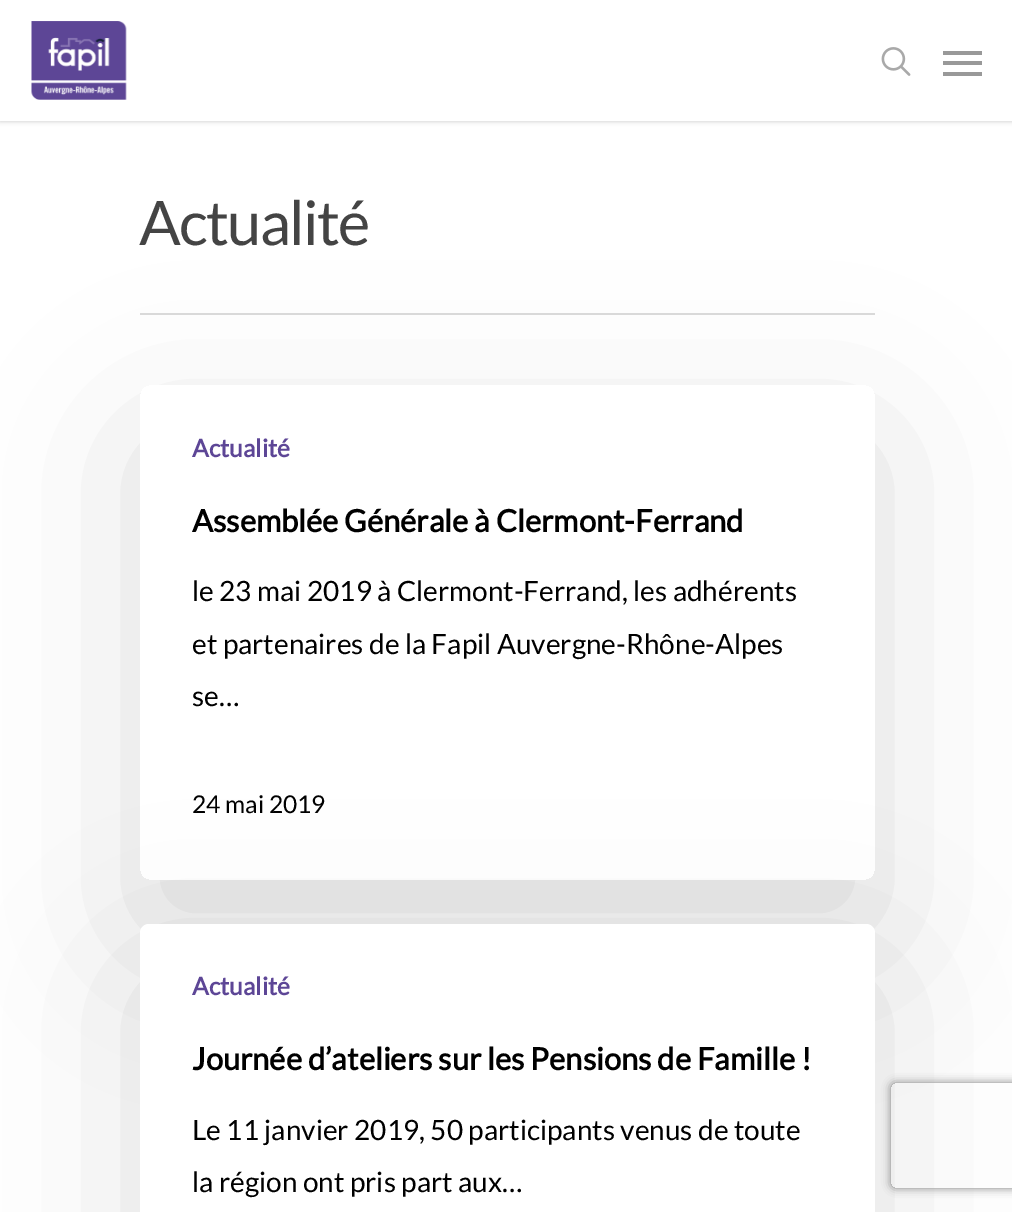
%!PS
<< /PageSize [1012 1212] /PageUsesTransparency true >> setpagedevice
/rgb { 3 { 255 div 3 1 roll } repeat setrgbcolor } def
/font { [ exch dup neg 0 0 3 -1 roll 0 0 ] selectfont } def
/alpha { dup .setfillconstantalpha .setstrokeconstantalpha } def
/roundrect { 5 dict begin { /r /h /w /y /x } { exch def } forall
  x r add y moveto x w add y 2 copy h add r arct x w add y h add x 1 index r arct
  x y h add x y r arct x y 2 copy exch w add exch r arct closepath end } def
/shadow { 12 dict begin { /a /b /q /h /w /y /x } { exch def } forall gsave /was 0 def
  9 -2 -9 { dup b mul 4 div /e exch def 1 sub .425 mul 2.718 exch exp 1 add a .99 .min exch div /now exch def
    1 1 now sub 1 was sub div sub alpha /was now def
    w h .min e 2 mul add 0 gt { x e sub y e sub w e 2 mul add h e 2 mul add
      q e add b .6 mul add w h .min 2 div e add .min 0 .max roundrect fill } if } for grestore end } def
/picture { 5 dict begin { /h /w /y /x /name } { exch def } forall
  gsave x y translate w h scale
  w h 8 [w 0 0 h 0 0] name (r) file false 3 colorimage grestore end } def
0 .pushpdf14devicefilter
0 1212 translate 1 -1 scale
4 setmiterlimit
255 255 255 rgb
0 0 1012 1212 rectfill
0 0 0 rgb
0 0 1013 121 0 2.5 0.22 shadow
255 255 255 rgb
0 0 1012 121 rectfill
(img/1.rgb) 31 21 96 79 picture
(img/2.rgb) 881 47 30 29 picture
[
  [943 51 39 4 153 153 153]
  [943 72 39 4 153 153 153]
  [943 61 39 4 153 153 153]
] { aload pop rgb rectfill } forall
gsave
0 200 moveto 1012 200 lineto 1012 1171 lineto 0 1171 lineto closepath 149 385 moveto 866 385 lineto 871 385 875 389 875 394 curveto 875 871 lineto 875 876 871 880 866 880 curveto 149 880 lineto 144 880 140 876 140 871 curveto 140 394 lineto 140 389 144 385 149 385 curveto closepath eoclip newpath
0 0 0 rgb
140 438 735 495 9 79 0.14 shadow
grestore
217 217 217 rgb
140 313 735 2 rectfill
0 0 0 rgb
140 977 735 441 9 79 0.14 shadow
255 255 255 rgb
149 924 moveto 866 924 lineto 871 924 875 928 875 933 curveto 875 1020 lineto 140 1020 lineto 140 933 lineto 140 928 144 924 149 924 curveto closepath fill
140 1020 735 192 rectfill
gsave
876 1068 moveto 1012 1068 lineto 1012 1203 lineto 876 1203 lineto closepath 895 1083 moveto 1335 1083 lineto 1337 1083 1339 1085 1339 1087 curveto 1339 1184 lineto 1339 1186 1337 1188 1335 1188 curveto 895 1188 lineto 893 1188 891 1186 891 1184 curveto 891 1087 lineto 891 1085 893 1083 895 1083 curveto closepath eoclip newpath
128 128 128 rgb
891 1083 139 105 4 4.5 1 shadow
grestore
/Lato-Regular 61.5 font
68 68 68 rgb
139 245 moveto -1.75 0 (Actualité) ashow
/Lato-Bold 24.5 font
93 70 150 rgb
192 457 moveto (Actualité) show
/Lato-Bold 30.8 font
0 0 0 rgb
192 532 moveto (Assemblée Générale à Clermont-Ferrand) show
/Lato-Regular 28 font
[
  [(le 23 mai 2019 à Clermont-Ferrand, les adhérents) 192 601]
  [(et partenaires de la Fapil Auvergne-Rhône-Alpes) 192 654]
  [(se…) 192 706]
] { aload pop moveto show } forall
/Lato-Regular 24.5 font
192 813 moveto (24 mai 2019) show
/Lato-Bold 24.5 font
93 70 150 rgb
192 995 moveto (Actualité) show
/Lato-Bold 30.8 font
0 0 0 rgb
192 1070 moveto (Journée d’ateliers sur les Pensions de Famille !) show
/Lato-Regular 28 font
192 1140 moveto (Le 11 janvier 2019, 50 participants venus de toute) show
192 1192 moveto (la région ont pris part aux…) show
.poppdf14devicefilter showpage
